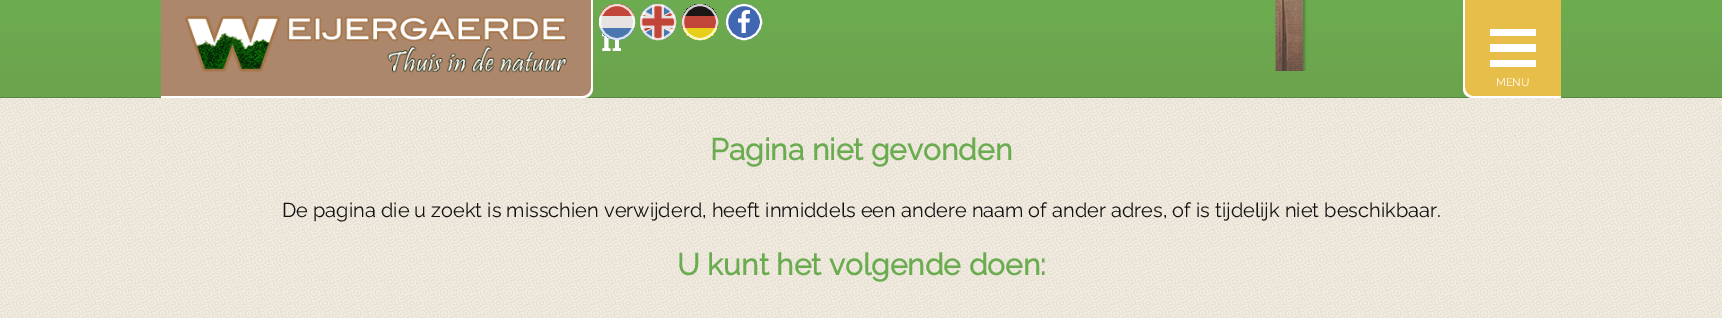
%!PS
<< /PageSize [1722 318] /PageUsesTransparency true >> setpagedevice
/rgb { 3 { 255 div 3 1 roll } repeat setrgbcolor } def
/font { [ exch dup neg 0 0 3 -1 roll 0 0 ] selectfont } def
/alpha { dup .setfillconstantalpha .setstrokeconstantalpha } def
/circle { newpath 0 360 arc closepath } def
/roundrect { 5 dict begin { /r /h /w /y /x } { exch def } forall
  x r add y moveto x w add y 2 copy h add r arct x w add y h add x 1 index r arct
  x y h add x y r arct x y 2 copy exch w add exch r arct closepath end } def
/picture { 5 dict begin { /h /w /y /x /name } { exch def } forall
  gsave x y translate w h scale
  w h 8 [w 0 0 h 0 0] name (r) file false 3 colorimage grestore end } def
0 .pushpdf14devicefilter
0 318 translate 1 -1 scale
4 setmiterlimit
255 255 255 rgb
0 0 1722 318 rectfill
gsave 0 0 moveto 1722 0 lineto 1722 97 lineto 0 97 lineto closepath clip newpath
<< /ShadingType 2 /ColorSpace /DeviceRGB /Coords [861 0 861 97] /Extend [true true] /Function << /FunctionType 2 /Domain [0 1] /C0 [0.424 0.675 0.318] /C1 [0.427 0.639 0.302] /N 1 >> >> shfill grestore
86 138 65 rgb
0 97 1722 1 rectfill
(img/1.rgb) 1275 0 32 71 picture
173 135 107 rgb
161 0 moveto 593 0 lineto 593 88 lineto 593 93.5 588.5 98 583 98 curveto 161 98 lineto closepath fill
255 255 255 rgb
161 0 moveto 593 0 lineto 593 88 lineto 593 94 589 98 583 98 curveto 161 98 lineto closepath 161 0 moveto 591 0 lineto 591 88 lineto 591 92 587 96 583 96 curveto 161 96 lineto closepath eofill
(img/2.rgb) 185 16 382 57 picture
617 22 18 circle fill
gsave
599 4 36 36 18 roundrect clip newpath
208 58 44 rgb
600 4 34 12 rectfill
grestore
(img/3.rgb) 640 4 36 36 picture
0.2 alpha
140 115 115 rgb
658 22 18 circle fill
0.8 alpha
255 255 255 rgb
2 setlinewidth
658 22 17 circle stroke
gsave
682 4 36 36 18 roundrect clip newpath
1 alpha
[
  [683 28 34 12 255 230 0]
  [683 4 34 12 0 0 0]
  [682 16 36 12 208 58 44]
] { aload pop rgb rectfill } forall
grestore
0.2 alpha
140 115 115 rgb
700 22 18 circle fill
0.8 alpha
255 255 255 rgb
700 22 17 circle stroke
1 alpha
66 103 178 rgb
744 22 18 circle fill
(img/4.rgb) 738 10 12 24 picture
255 255 255 rgb
744 22 17 circle stroke
232 190 74 rgb
1463 0 moveto 1561 0 lineto 1561 98 lineto 1473 98 lineto 1467.5 98 1463 93.5 1463 88 curveto closepath fill
255 255 255 rgb
1463 0 moveto 1561 0 lineto 1561 98 lineto 1473 98 lineto 1467 98 1463 94 1463 88 curveto closepath 1465 0 moveto 1561 0 lineto 1561 96 lineto 1473 96 lineto 1469 96 1465 92 1465 88 curveto closepath eofill
1536 36 moveto 1490 36 lineto 1490 29 lineto 1536 29 lineto closepath 1536 44 moveto 1490 44 lineto 1490 52 lineto 1536 52 lineto closepath 1536 60 moveto 1490 60 lineto 1490 67 lineto 1536 67 lineto closepath fill
(img/5.rgb) 0 98 1722 220 picture
/BreeSerif-Regular 35 font
601 51 moveto (n) show
gsave
599 4 36 36 18 roundrect clip newpath
59 120 193 rgb
600 28 34 12 rectfill
grestore
0.2 alpha
140 115 115 rgb
617 22 18 circle fill
0.8 alpha
255 255 255 rgb
617 22 17 circle stroke
/Raleway-Thin 11 font
1 alpha
1496 86 moveto (MENU) show
/Raleway-Bold 30 font
107 172 81 rgb
710 160 moveto (Pagina niet gevonden) show
/Raleway-Thin 20 font
17 17 17 rgb
282 217 moveto (De pagina die u zoekt is misschien verwijderd, heeft inmiddels een andere naam of ander adres, of is tijdelijk niet beschikbaar.) show
/Raleway-Bold 30 font
107 172 81 rgb
677 275 moveto (U kunt het volgende doen:) show
.poppdf14devicefilter showpage
